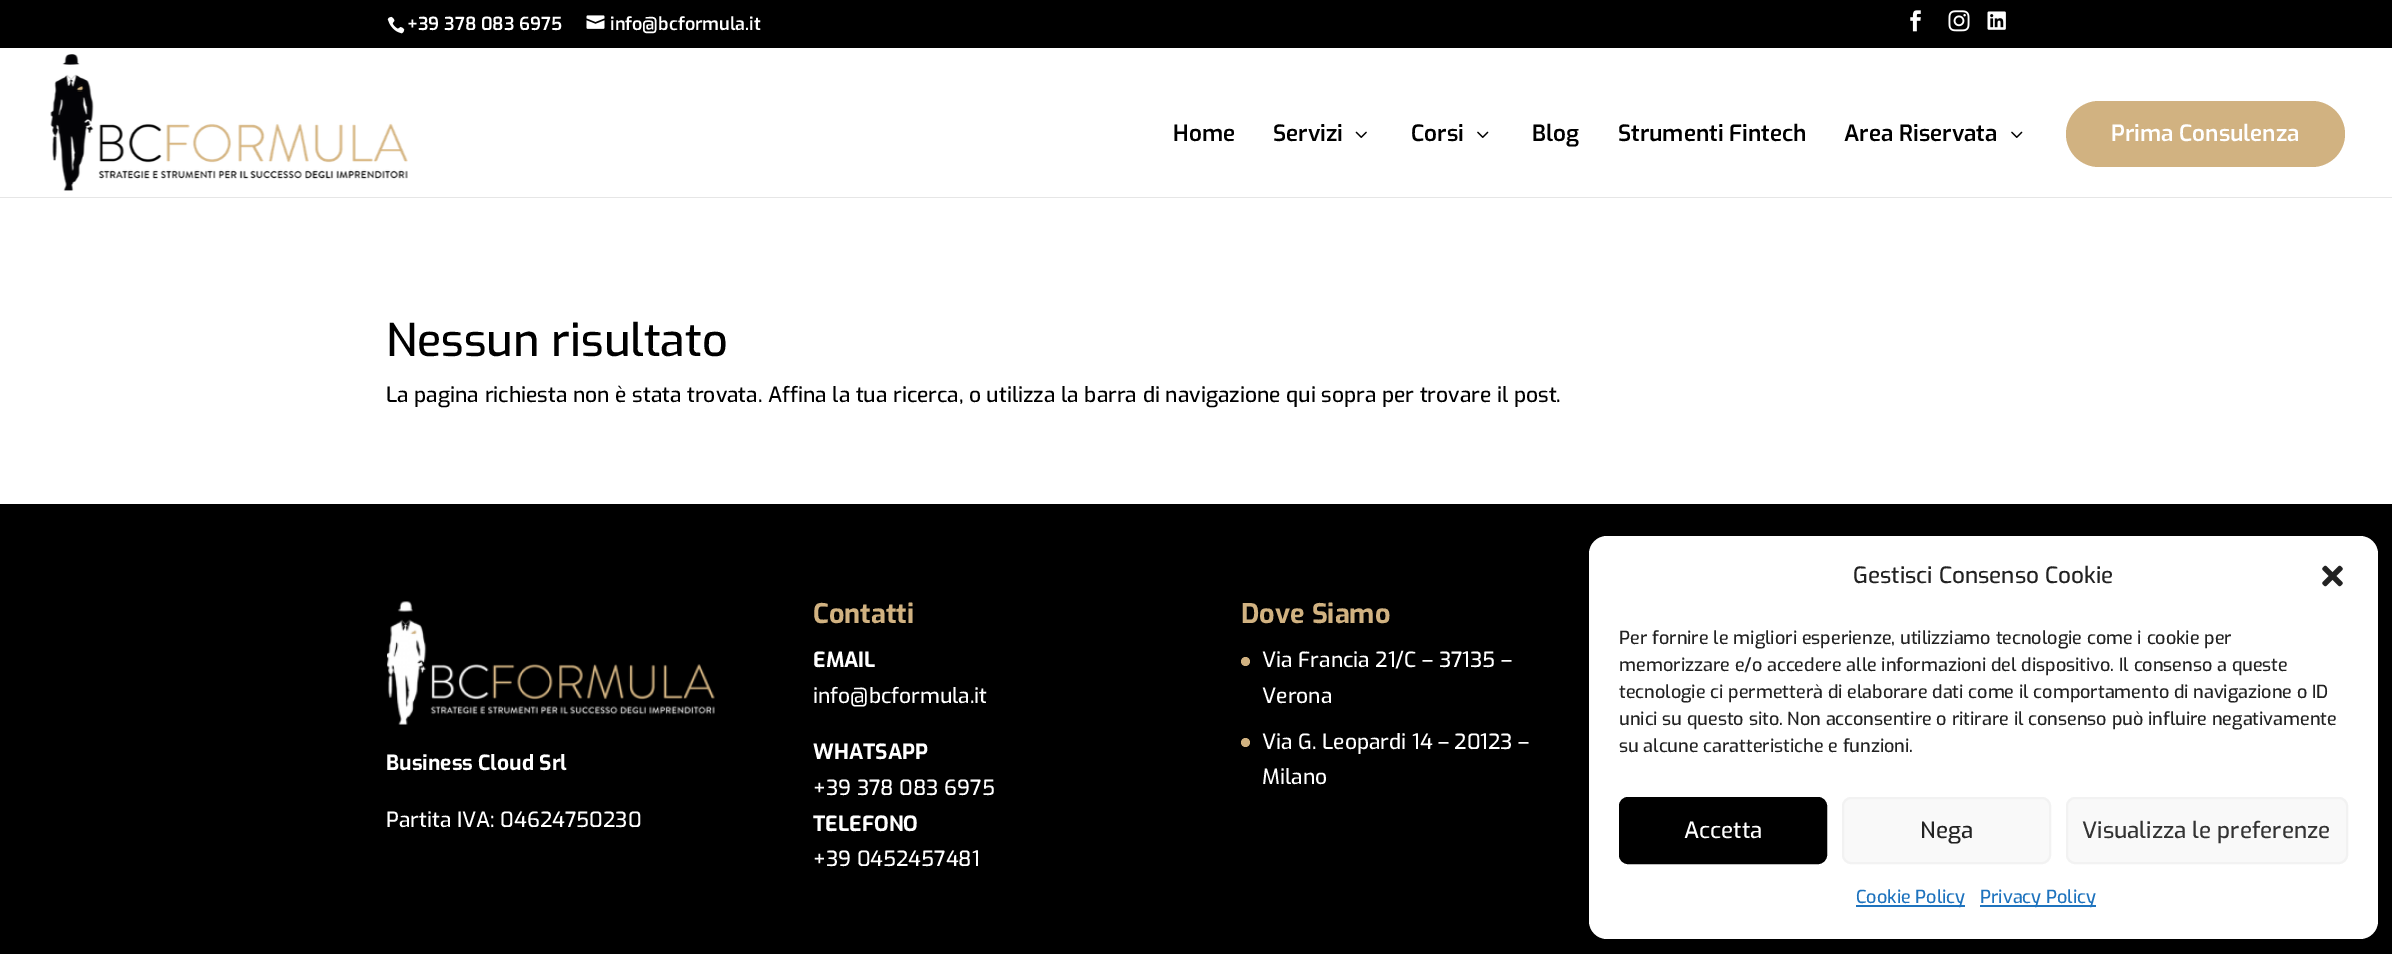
%!PS
<< /PageSize [2392 954] >> setpagedevice
/rgb { 3 { 255 div 3 1 roll } repeat setrgbcolor } def
/font { [ exch dup neg 0 0 3 -1 roll 0 0 ] selectfont } def
/circle { newpath 0 360 arc closepath } def
/roundrect { 5 dict begin { /r /h /w /y /x } { exch def } forall
  x r add y moveto x w add y 2 copy h add r arct x w add y h add x 1 index r arct
  x y h add x y r arct x y 2 copy exch w add exch r arct closepath end } def
/picture { 5 dict begin { /h /w /y /x /name } { exch def } forall
  gsave x y translate w h scale
  w h 8 [w 0 0 h 0 0] name (r) file false 3 colorimage grestore end } def
0 954 translate 1 -1 scale
4 setmiterlimit
255 255 255 rgb
0 0 2392 954 rectfill
0 0 0 rgb
0 0 2392 48 rectfill
(img/1.rgb) 387 16 18 18 picture
(img/2.rgb) 586 15 19 14 picture
(img/3.rgb) 1910 10 11 22 picture
(img/4.rgb) 1948 10 22 22 picture
(img/5.rgb) 1987 11 19 19 picture
230 230 230 rgb
0 196 moveto 0 198 lineto 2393 198 lineto 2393 50 lineto 2392 50 lineto 2392 196 lineto closepath fill
255 255 255 rgb
0 196 2392 1 rectfill
(img/6.rgb) 50 54 358 137 picture
(img/7.rgb) 1355 131 12 7 picture
(img/8.rgb) 1477 131 12 7 picture
(img/8.rgb) 2011 131 12 7 picture
209 178 129 rgb
2066 101 279 66 33 roundrect fill
0 0 0 rgb
0 504 2392 450 rectfill
(img/9.rgb) 387 601 328 124 picture
209 178 129 rgb
1245.5 661.5 4.5 circle fill
1245.5 742.5 4.5 circle fill
255 255 255 rgb
1589 536 789 403 18 roundrect fill
(img/10.rgb) 2322 565 21 22 picture
0 0 0 rgb
1620 798 206 65 8 roundrect gsave fill grestore
2 setlinewidth
stroke
249 249 249 rgb
1843 798 207 65 8 roundrect gsave fill grestore
242 242 242 rgb
stroke
249 249 249 rgb
2067 798 280 65 8 roundrect gsave fill grestore
242 242 242 rgb
stroke
30 115 190 rgb
1856 905 109 2 rectfill
1980 905 116 2 rectfill
/Exo-SemiBold 18 font
255 255 255 rgb
407 30 moveto (+39 378 083 6975) show
610 30 moveto (info@bcformula.it) show
/Exo-SemiBold 22.5 font
0 0 0 rgb
[
  [(Home) 1173 141]
  [(Servizi) 1273 141]
  [(Corsi) 1411 141]
  [(Blog) 1532 141]
  [(Strumenti Fintech) 1618 141]
  [(Area Riservata) 1844 141]
] { aload pop moveto show } forall
255 255 255 rgb
2111 141 moveto (Prima Consulenza) show
/Exo-Medium 45 font
0 0 0 rgb
386 356 moveto (Nessun risultato) show
/Exo-Medium 21 font
386 402 moveto (La pagina richiesta non è stata trovata. Affina la tua ricerca, o utilizza la barra di navigazione qui sopra per trovare il post.) show
/Exo-Bold 21 font
255 255 255 rgb
386 770 moveto (Business Cloud Srl) show
/Exo-Medium 21 font
386 827 moveto (Partita IVA: 04624750230) show
/Exo-Bold 27 font
209 178 129 rgb
813 623 moveto (Contatti) show
/Exo-Bold 21 font
255 255 255 rgb
813 667 moveto (EMAIL) show
/Exo-Medium 21 font
813 703 moveto (info@bcformula.it) show
/Exo-Bold 21 font
813 759 moveto (WHATSAPP) show
/Exo-Medium 21 font
813 795 moveto (+39 378 083 6975) show
/Exo-Bold 21 font
813 831 moveto (TELEFONO) show
/Exo-Medium 21 font
813 866 moveto (+39 0452457481) show
/Exo-Bold 27 font
209 178 129 rgb
1241 623 moveto (Dove Siamo) show
/Exo-Medium 21 font
255 255 255 rgb
[
  [(Via Francia 21/C – 37135 –) 1262 667]
  [(Verona) 1262 703]
  [(Via G. Leopardi 14 – 20123 –) 1262 749]
  [(Milano) 1262 784]
] { aload pop moveto show } forall
/Exo-Medium 22.5 font
34 34 34 rgb
1853 583 moveto (Gestisci Consenso Cookie) show
/Exo-Medium 18 font
[
  [(Per fornire le migliori esperienze, utilizziamo tecnologie come i cookie per) 1619 644]
  [(memorizzare e/o accedere alle informazioni del dispositivo. Il consenso a queste) 1619 671]
  [(tecnologie ci permetterà di elaborare dati come il comportamento di navigazione o ID) 1619 698]
  [(unici su questo sito. Non acconsentire o ritirare il consenso può influire negativamente) 1619 725]
  [(su alcune caratteristiche e funzioni.) 1619 752]
] { aload pop moveto show } forall
/Exo-Medium 22.5 font
255 255 255 rgb
1684 838 moveto (Accetta) show
34 34 34 rgb
1920 838 moveto (Nega) show
51 51 51 rgb
2082 838 moveto (Visualizza le preferenze) show
/Exo-Medium 18 font
30 115 190 rgb
1856 903 moveto (Cookie Policy) show
1980 903 moveto (Privacy Policy) show
showpage
